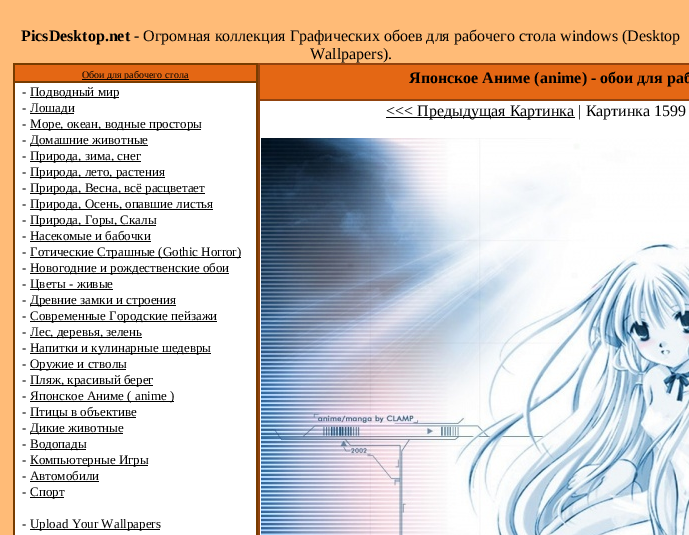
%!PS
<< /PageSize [689 535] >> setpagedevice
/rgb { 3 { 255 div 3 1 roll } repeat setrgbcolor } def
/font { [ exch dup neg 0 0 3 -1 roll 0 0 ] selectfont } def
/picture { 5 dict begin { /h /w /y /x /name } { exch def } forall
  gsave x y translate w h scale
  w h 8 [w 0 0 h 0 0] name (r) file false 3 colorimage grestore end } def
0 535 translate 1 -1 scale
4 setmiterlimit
255 187 119 rgb
0 0 689 535 rectfill
[
  [13 63 245 472 119 60 0]
  [15 65 241 16 228 103 20]
  [82 79 107 1 0 0 0]
  [15 83 241 452 255 255 255]
  [30 97 89 1 0 0 0]
  [30 113 44 1 0 0 0]
  [30 129 171 1 0 0 0]
  [30 145 118 1 0 0 0]
  [30 161 111 1 0 0 0]
  [30 177 135 1 0 0 0]
  [30 193 175 1 0 0 0]
  [30 209 183 1 0 0 0]
  [30 225 126 1 0 0 0]
  [30 241 121 1 0 0 0]
  [30 257 211 1 0 0 0]
  [30 273 199 1 0 0 0]
  [30 289 83 1 0 0 0]
  [30 305 146 1 0 0 0]
  [30 321 187 1 0 0 0]
  [30 337 112 1 0 0 0]
  [30 353 181 1 0 0 0]
  [30 369 96 1 0 0 0]
  [30 385 123 1 0 0 0]
  [30 401 144 1 0 0 0]
  [30 417 106 1 0 0 0]
  [30 433 93 1 0 0 0]
  [30 449 56 1 0 0 0]
  [30 465 118 1 0 0 0]
  [30 481 69 1 0 0 0]
  [30 497 34 1 0 0 0]
  [30 529 130 1 0 0 0]
  [258 63 431 472 146 67 14]
  [260 65 429 34 228 103 20]
  [260 101 429 434 255 255 255]
  [386 117 189 1 0 0 0]
] { aload pop rgb rectfill } forall
(img/1.rgb) 261 138 428 397 picture
/LiberationSerif-Bold 16 font
21 41 moveto (PicsDesktop.net) show
/LiberationSerif-Regular 16 font
134 41 moveto (- Огромная коллекция Графических обоев для рабочего стола windows \(Desktop) show
310 59 moveto (Wallpapers\).) show
/LiberationSerif-Regular 10 font
82 78 moveto (Обои для рабочего стола) show
/LiberationSerif-Regular 13 font
[
  [(-) 22 96]
  [(Подводный мир) 30 96]
  [(-) 22 112]
  [(Лошади) 30 112]
  [(-) 22 128]
  [(Море, океан, водные просторы) 30 128]
  [(-) 22 144]
  [(Домашние животные) 30 144]
  [(-) 22 160]
  [(Природа, зима, снег) 30 160]
  [(-) 22 176]
  [(Природа, лето, растения) 30 176]
  [(-) 22 192]
  [(Природа, Весна, всё расцветает) 30 192]
  [(-) 22 208]
  [(Природа, Осень, опавшие листья) 30 208]
  [(-) 22 224]
  [(Природа, Горы, Скалы) 30 224]
  [(- Насекомые и бабочки) 22 240]
  [(-) 22 256]
  [(Готические Страшные \(Gothic Horror\)) 30 256]
  [(-) 22 272]
  [(Новогодние и рождественские обои) 30 272]
  [(-) 22 288]
  [(Цветы - живые) 30 288]
  [(-) 22 304]
  [(Древние замки и строения) 30 304]
  [(-) 22 320]
  [(Современные Городские пейзажи) 30 320]
  [(-) 22 336]
  [(Лес, деревья, зелень) 30 336]
  [(-) 22 352]
  [(Напитки и кулинарные шедевры) 30 352]
  [(-) 22 368]
  [(Оружие и стволы) 30 368]
  [(-) 22 384]
  [(Пляж, красивый берег) 30 384]
  [(-) 22 400]
  [(Японское Аниме \( anime \)) 30 400]
  [(-) 22 416]
  [(Птицы в объективе) 30 416]
  [(-) 22 432]
  [(Дикие животные) 30 432]
  [(-) 22 448]
  [(Водопады) 30 448]
  [(-) 22 464]
  [(Компьютерные Игры) 30 464]
  [(- Автомобили) 22 480]
  [(-) 22 496]
  [(Спорт) 30 496]
  [(-) 22 528]
  [(Upload Your Wallpapers) 30 528]
] { aload pop moveto show } forall
/LiberationSerif-Bold 16 font
409 83 moveto (Японское Аниме \(anime\) - обои для раб) show
/LiberationSerif-Regular 16 font
386 116 moveto (<<< Предыдущая Картинка | Картинка 1599) show
showpage
